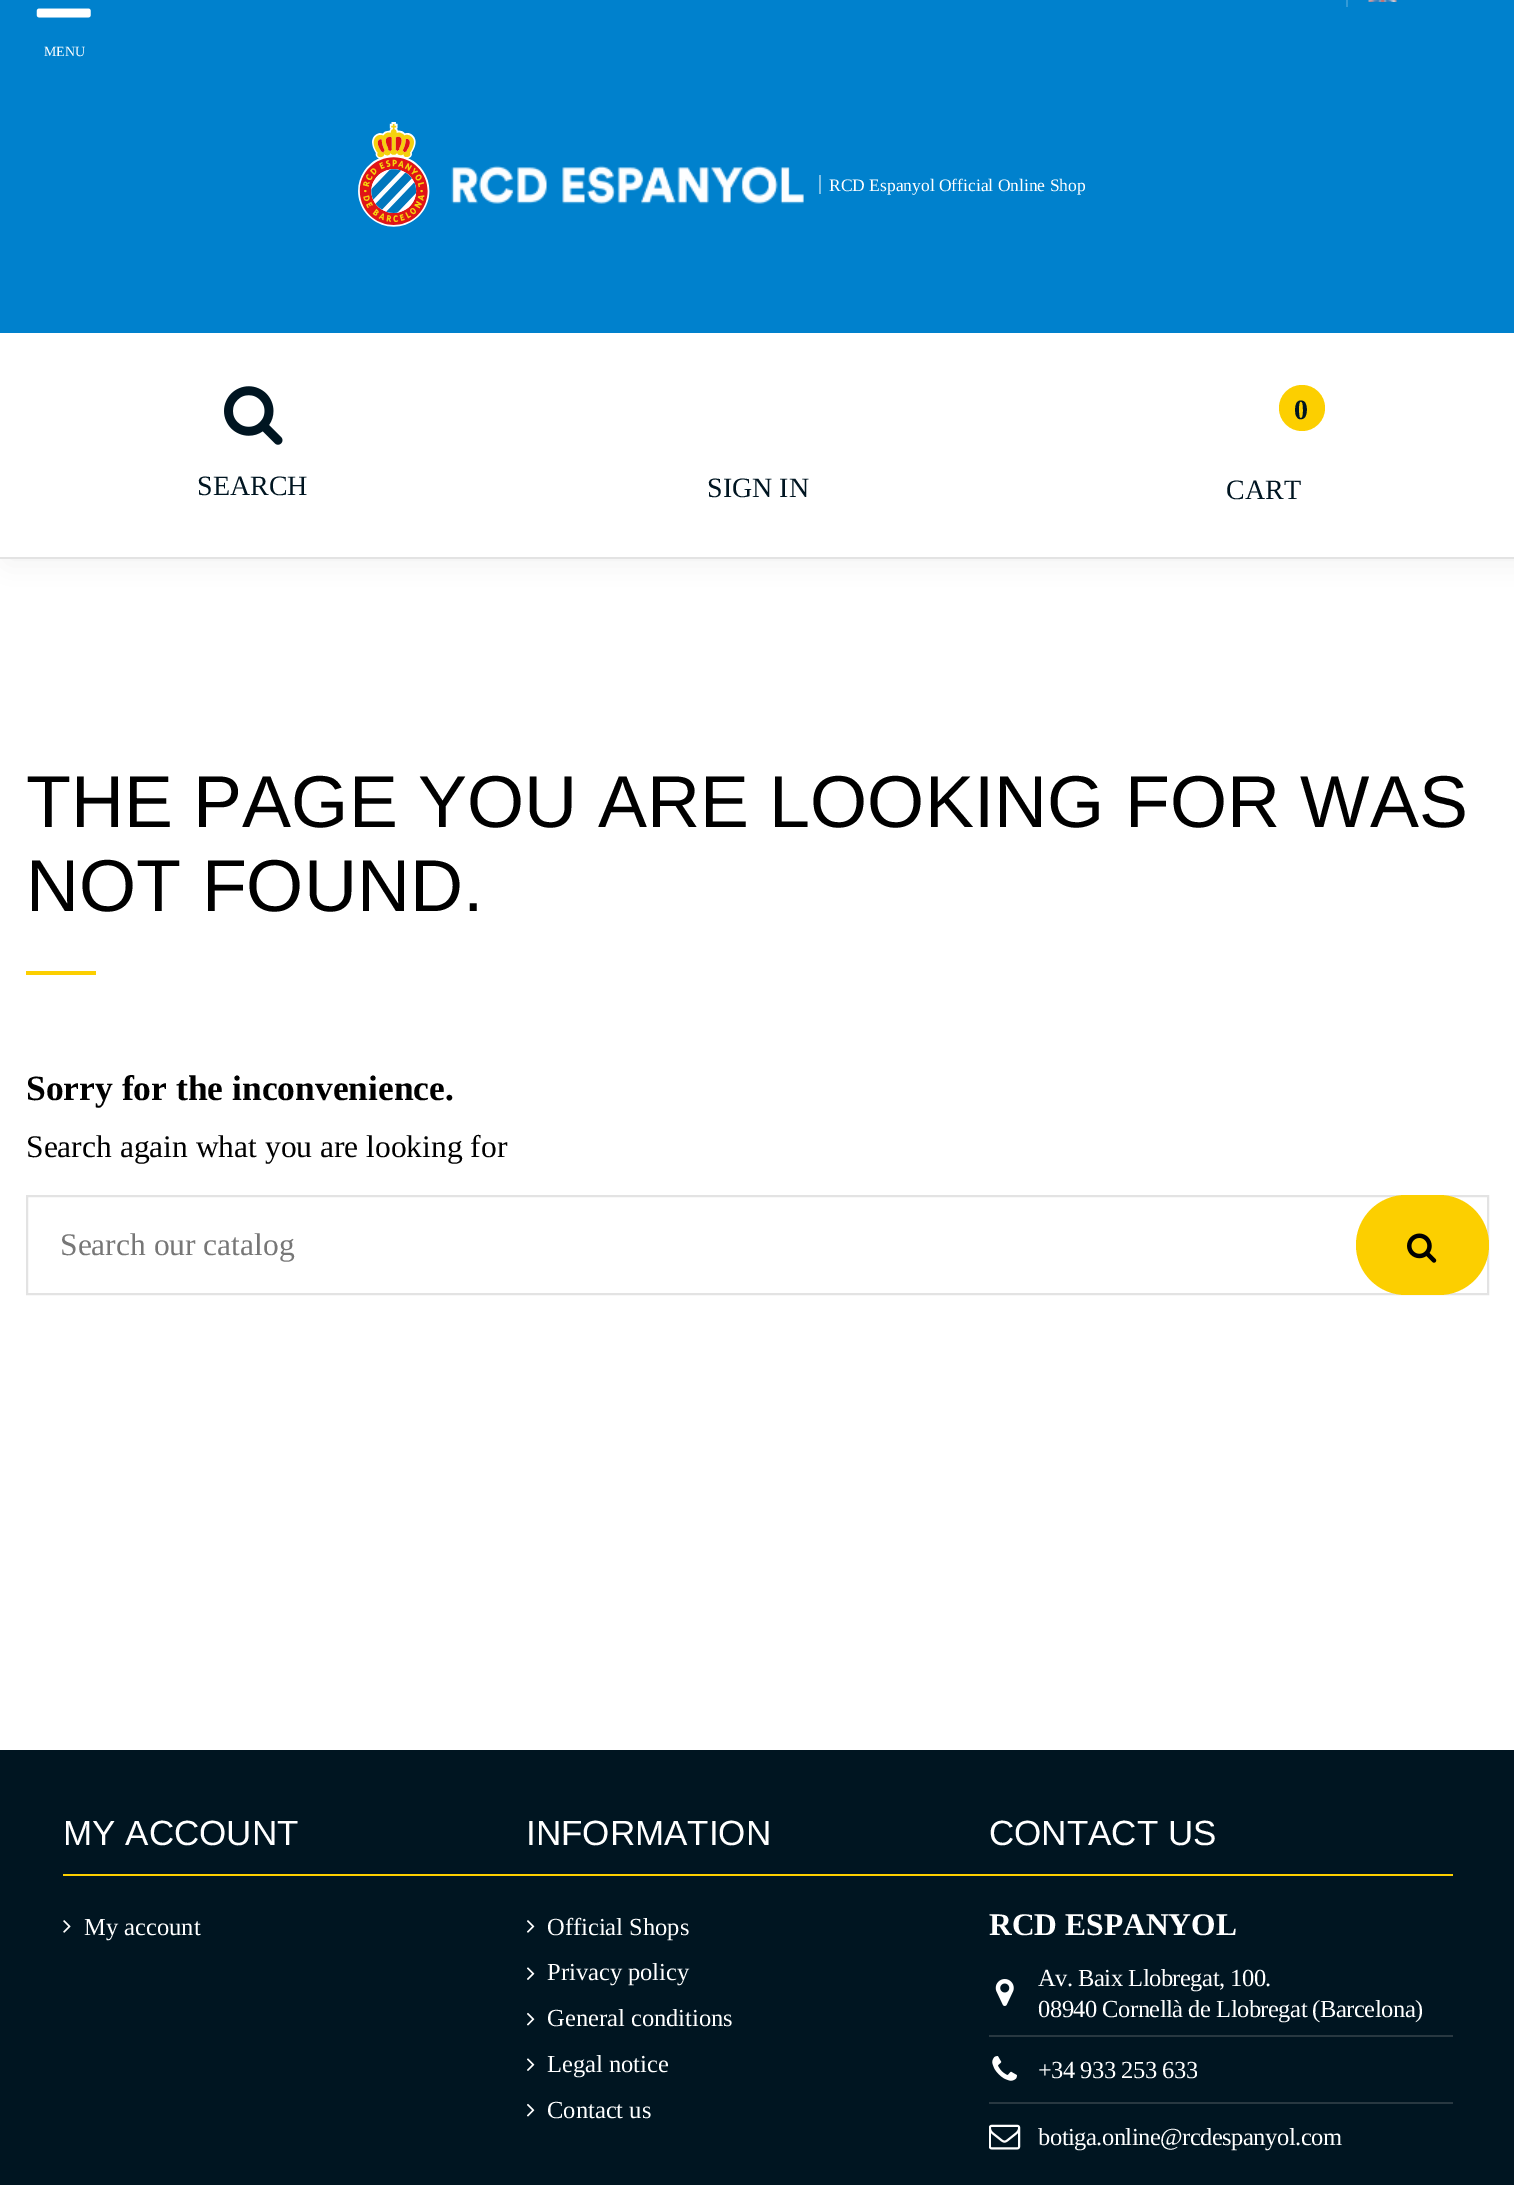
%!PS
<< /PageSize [1514 2185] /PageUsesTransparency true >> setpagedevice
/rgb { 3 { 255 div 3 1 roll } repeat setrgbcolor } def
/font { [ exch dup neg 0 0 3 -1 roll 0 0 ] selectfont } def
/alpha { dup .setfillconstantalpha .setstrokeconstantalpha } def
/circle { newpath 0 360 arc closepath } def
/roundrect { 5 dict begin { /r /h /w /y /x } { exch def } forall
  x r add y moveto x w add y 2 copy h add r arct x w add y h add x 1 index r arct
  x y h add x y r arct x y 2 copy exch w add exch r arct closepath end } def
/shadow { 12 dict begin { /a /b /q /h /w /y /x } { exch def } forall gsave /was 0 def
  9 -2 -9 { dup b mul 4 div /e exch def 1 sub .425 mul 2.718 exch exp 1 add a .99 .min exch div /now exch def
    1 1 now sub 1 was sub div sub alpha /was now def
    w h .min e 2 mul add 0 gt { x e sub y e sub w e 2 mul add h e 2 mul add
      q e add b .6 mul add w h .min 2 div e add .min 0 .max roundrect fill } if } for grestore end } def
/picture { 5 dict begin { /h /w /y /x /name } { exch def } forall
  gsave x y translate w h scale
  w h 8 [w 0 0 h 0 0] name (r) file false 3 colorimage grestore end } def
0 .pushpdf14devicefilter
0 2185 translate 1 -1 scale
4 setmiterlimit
255 255 255 rgb
0 0 1514 2185 rectfill
61 57 57 rgb
9 -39 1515 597 0 13 0.09 shadow
[
  [0 557 1514 2 227 227 227]
  [0 0 1514 333 0 129 205]
  [0 333 1514 224 255 255 255]
] { aload pop rgb rectfill } forall
(img/1.rgb) 36 8 55 10 picture
(img/2.rgb) 224 386 59 59 picture
252 207 0 rgb
1302 408 23 circle fill
51 154 215 rgb
1346 0 2 7 rectfill
(img/3.rgb) 1368 0 29 2 picture
(img/4.rgb) 358 122 72 105 picture
(img/5.rgb) 451 165 353 39 picture
128 192 230 rgb
819 175 2 19 rectfill
252 207 0 rgb
26 971 70 4 rectfill
227 227 227 rgb
2 setlinewidth
27 1196 1461 98 rectstroke
252 207 0 rgb
1356 1195 133 100 50 roundrect fill
(img/6.rgb) 1407 1233 30 30 picture
0 21 33 rgb
0 1750 1514 435 rectfill
252 207 0 rgb
63 1874 1390 2 rectfill
(img/7.rgb) 63 1920 8 13 picture
(img/8.rgb) 527 1920 8 13 picture
(img/9.rgb) 527 1967 8 13 picture
(img/10.rgb) 527 2012 8 14 picture
(img/9.rgb) 527 2058 8 13 picture
(img/10.rgb) 527 2103 8 14 picture
(img/11.rgb) 995 1979 19 27 picture
40 56 65 rgb
989 2035 464 2 rectfill
(img/12.rgb) 992 2056 25 25 picture
989 2102 464 2 rectfill
(img/13.rgb) 989 2124 32 26 picture
/LiberationSerif-Regular 14 font
255 255 255 rgb
44 56 moveto (MENU) show
/LiberationSerif-Regular 28 font
0 21 33 rgb
197 495 moveto (SEARCH) show
707 497 moveto (SIGN IN) show
/LiberationSerif-Bold 28 font
1294 419 moveto (0) show
/LiberationSerif-Regular 28 font
1226 499 moveto (CART) show
/LiberationSerif-Regular 17.5 font
255 255 255 rgb
829 191 moveto (RCD Espanyol Official Online Shop) show
/LiberationSans-Regular 73.5 font
0 0 0 rgb
26 827 moveto (THE PAGE YOU ARE LOOKING FOR WAS) show
26 911 moveto (NOT FOUND.) show
/LiberationSerif-Bold 35.5 font
26 1100 moveto (Sorry for the inconvenience.) show
/LiberationSerif-Regular 31.5 font
26 1157 moveto (Search again what you are looking for) show
119 119 119 rgb
60 1255 moveto (Search our catalog) show
/LiberationSans-Regular 35 font
255 255 255 rgb
63 1845 moveto (MY ACCOUNT) show
/LiberationSerif-Regular 24.5 font
84 1935 moveto (My account) show
/LiberationSans-Regular 35 font
526 1845 moveto (INFORMATION) show
/LiberationSerif-Regular 24.5 font
[
  [(Official Shops) 547 1935]
  [(Privacy policy) 547 1980]
  [(General conditions) 547 2026]
  [(Legal notice) 547 2072]
  [(Contact us) 547 2118]
] { aload pop moveto show } forall
/LiberationSans-Regular 35 font
989 1845 moveto (CONTACT US) show
/LiberationSerif-Bold 31.5 font
989 1935 moveto (RCD ESPANYOL) show
/LiberationSerif-Regular 24.5 font
1038 1986 moveto -0.5 0 (Av. Baix Llobregat, 100.) ashow
1038 2017 moveto -0.5 0 (08940 Cornellà de Llobregat \(Barcelona\)) ashow
gsave
1038 2055 159 31 rectclip
1038 2078 moveto -0.5 0 (+34 933 253 633) ashow
grestore
1038 2145 moveto -0.5 0 (botiga.online@rcdespanyol.com) ashow
.poppdf14devicefilter showpage
